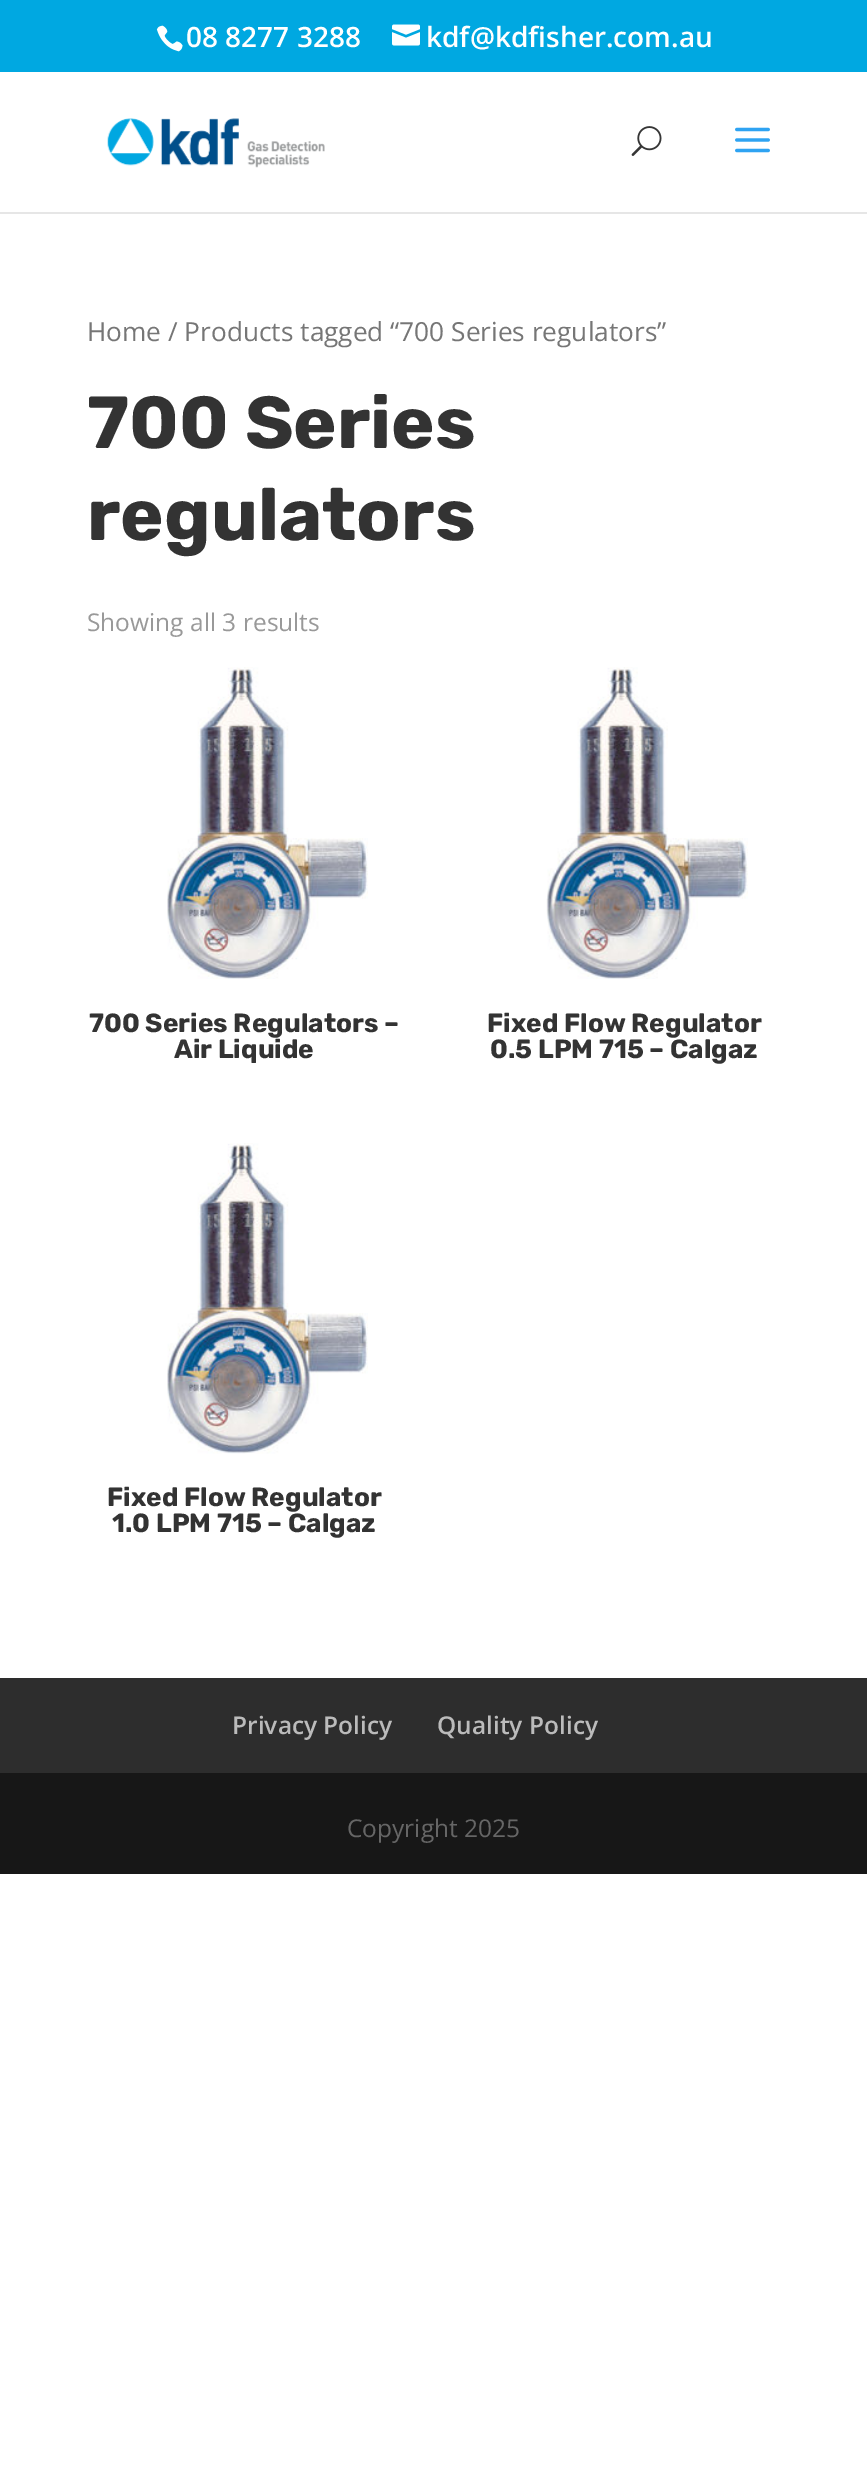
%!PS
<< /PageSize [867 2472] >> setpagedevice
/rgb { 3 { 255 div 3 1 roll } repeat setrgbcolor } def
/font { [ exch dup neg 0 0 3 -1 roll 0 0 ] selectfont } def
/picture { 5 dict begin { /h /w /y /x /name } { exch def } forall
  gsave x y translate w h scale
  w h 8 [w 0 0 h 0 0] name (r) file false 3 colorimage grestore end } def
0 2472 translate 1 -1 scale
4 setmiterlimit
255 255 255 rgb
0 0 867 2472 rectfill
0 168 225 rgb
0 0 867 72 rectfill
(img/1.rgb) 156 25 27 27 picture
(img/2.rgb) 392 24 28 22 picture
230 230 230 rgb
0 212 867 2 rectfill
(img/3.rgb) 107 118 218 50 picture
(img/4.rgb) 631 126 31 30 picture
(img/5.rgb) 735 127 35 26 picture
(img/6.rgb) 167 667 201 312 picture
(img/7.rgb) 546 667 202 312 picture
(img/8.rgb) 167 1143 201 311 picture
45 45 45 rgb
0 1678 867 95 rectfill
23 23 23 rgb
0 1773 867 101 rectfill
/OpenSans-SemiBold 28 font
255 255 255 rgb
186 47 moveto (08 8277 3288) show
426 47 moveto (kdf@kdfisher.com.au) show
/OpenSans-Regular 26.25 font
118 118 118 rgb
87 341 moveto (Home / Products tagged “700 Series regulators”) show
/Rubik-Bold 73.5 font
51 51 51 rgb
87 448 moveto (700 Series) show
87 540 moveto (regulators) show
/OpenSans-Regular 24.5 font
153 153 153 rgb
87 631 moveto (Showing all 3 results) show
/Rubik-Bold 26.25 font
51 51 51 rgb
[
  [(700 Series Regulators –) 89 1032]
  [(Air Liquide) 174 1058]
  [(Fixed Flow Regulator) 487 1032]
  [(0.5 LPM 715 – Calgaz) 490 1058]
  [(Fixed Flow Regulator) 107 1506]
  [(1.0 LPM 715 – Calgaz) 112 1532]
] { aload pop moveto show } forall
/OpenSans-SemiBold 24.5 font
187 187 187 rgb
232 1734 moveto (Privacy Policy) show
437 1734 moveto (Quality Policy) show
/OpenSans-Regular 24.5 font
102 102 102 rgb
347 1837 moveto (Copyright 2025) show
showpage
